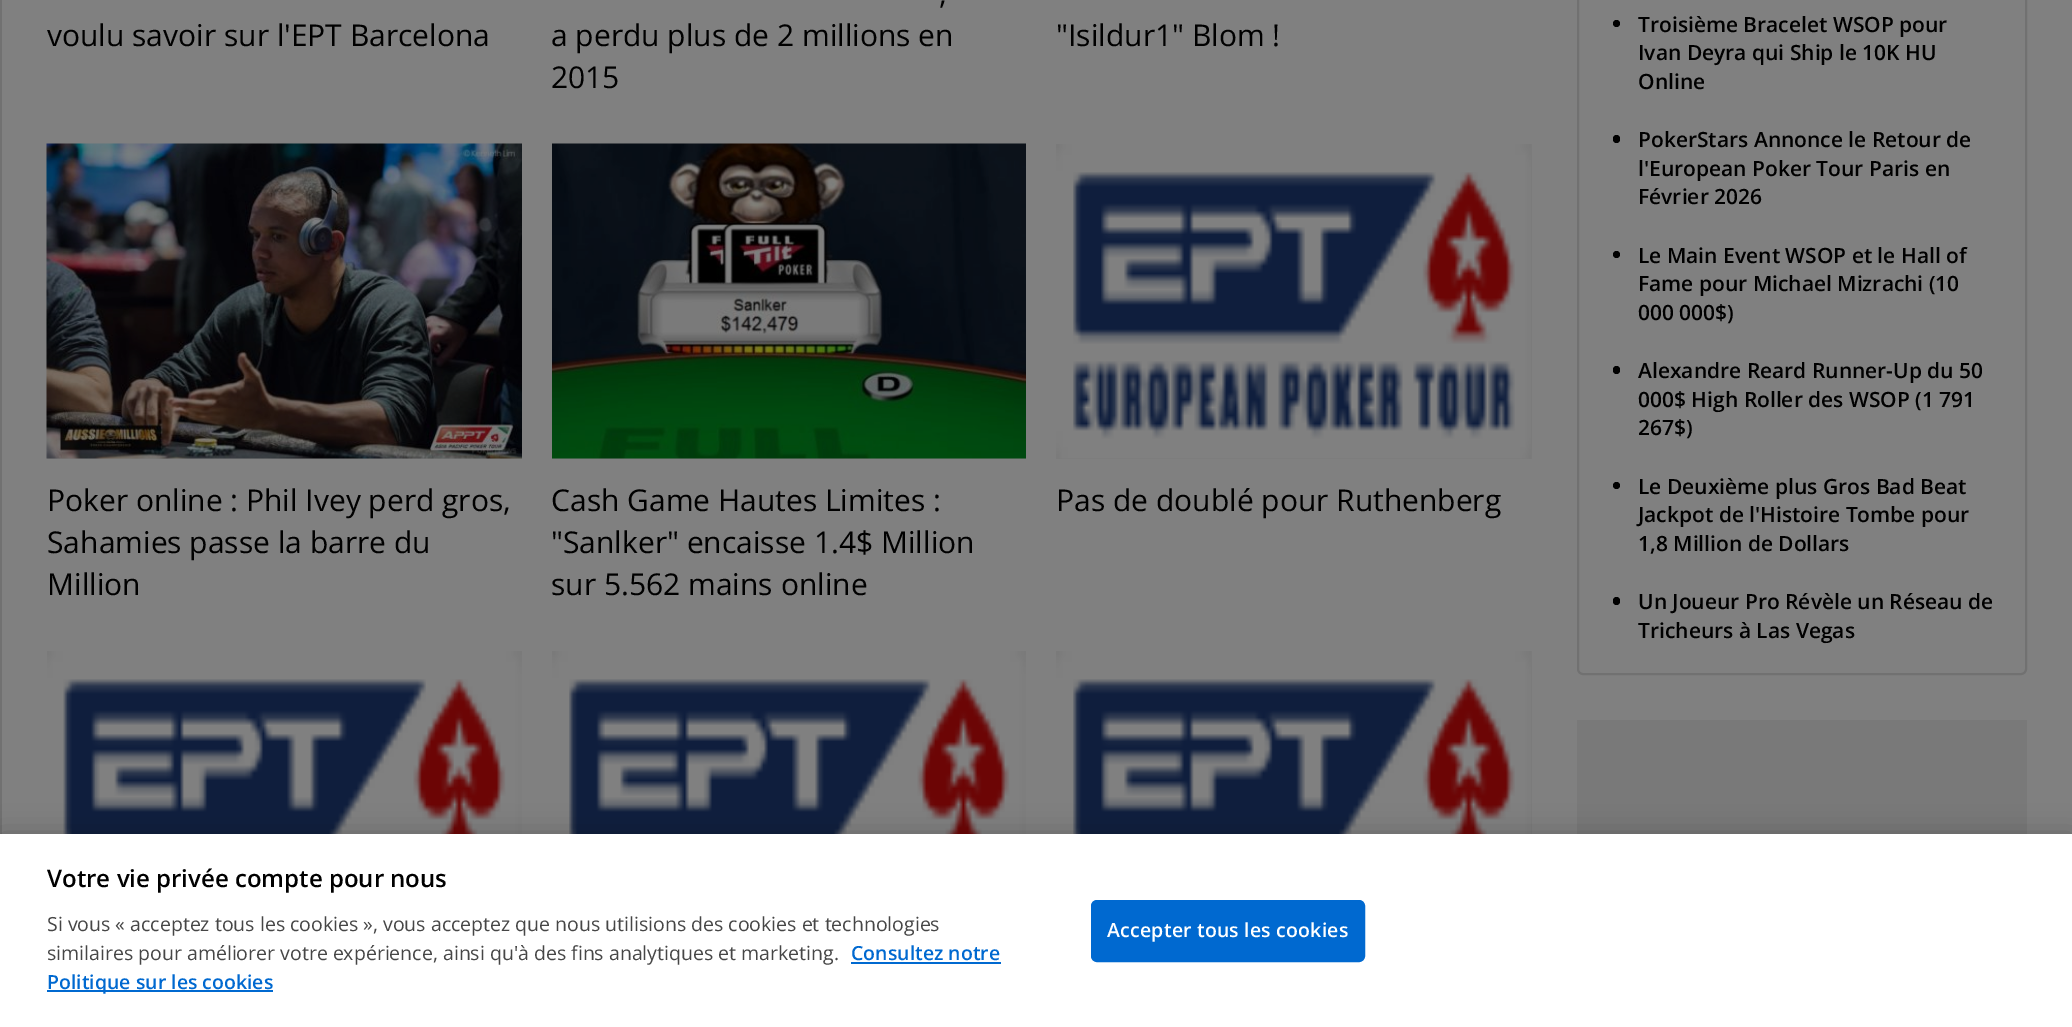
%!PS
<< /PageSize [2072 1027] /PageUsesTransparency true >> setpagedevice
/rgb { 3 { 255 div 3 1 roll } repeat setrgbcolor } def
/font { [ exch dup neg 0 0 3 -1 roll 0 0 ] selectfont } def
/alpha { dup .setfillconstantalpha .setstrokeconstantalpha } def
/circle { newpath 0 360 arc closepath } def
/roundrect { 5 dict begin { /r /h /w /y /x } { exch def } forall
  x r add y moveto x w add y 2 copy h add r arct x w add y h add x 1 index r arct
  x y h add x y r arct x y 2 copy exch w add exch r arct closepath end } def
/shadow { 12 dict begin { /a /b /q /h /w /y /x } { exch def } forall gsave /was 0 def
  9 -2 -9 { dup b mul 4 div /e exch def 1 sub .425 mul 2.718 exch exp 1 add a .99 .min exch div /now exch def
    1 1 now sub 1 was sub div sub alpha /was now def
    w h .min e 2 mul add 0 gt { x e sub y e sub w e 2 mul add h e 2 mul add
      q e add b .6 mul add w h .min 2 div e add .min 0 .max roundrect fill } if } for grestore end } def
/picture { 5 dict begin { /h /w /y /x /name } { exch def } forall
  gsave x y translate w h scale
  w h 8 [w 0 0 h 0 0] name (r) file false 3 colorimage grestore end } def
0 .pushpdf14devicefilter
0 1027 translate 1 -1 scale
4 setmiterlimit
113 113 113 rgb
0 0 2072 1027 rectfill
128 128 128 rgb
2 0 2070 834 rectfill
123 123 123 rgb
47 458 475 1 rectfill
(img/1.rgb) 46 143 476 316 picture
552 458 474 1 rectfill
(img/2.rgb) 552 143 474 316 picture
1056 144 476 315 rectfill
(img/3.rgb) 1056 144 475 315 picture
47 651 475 183 rectfill
(img/4.rgb) 47 651 475 183 picture
552 651 474 183 rectfill
(img/5.rgb) 552 651 474 183 picture
1056 651 476 183 rectfill
(img/6.rgb) 1056 651 475 183 picture
113 113 113 rgb
2 setlinewidth
1578 -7 448 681 5 roundrect stroke
0 0 0 rgb
1616.5 23.5 3.5 circle fill
1613 135 7 8 3.5 roundrect fill
1616.5 254.5 3.5 circle fill
1613 366 7 8 3.5 roundrect fill
1616.5 485.5 3.5 circle fill
1613 597 7 8 3.5 roundrect fill
121 121 121 rgb
1577 720 450 114 rectfill
0 0 0 rgb
0 834 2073 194 0 13.5 0.2 shadow
[
  [0 834 2072 193 255 255 255]
  [851 962 150 2 0 105 208]
  [47 990 226 2 0 105 208]
] { aload pop rgb rectfill } forall
1092 901 272 60 5 roundrect gsave fill grestore
stroke
/OpenSans-Regular 30 font
0 0 0 rgb
[
  [(voulu savoir sur l'EPT Barcelona) 47 46]
  [(,) 939 4]
  [(a perdu plus de 2 millions en) 551 46]
  [(2015) 551 88]
  [("Isildur1" Blom !) 1056 46]
  [(Poker online : Phil Ivey perd gros,) 47 511]
  [(Sahamies passe la barre du) 47 553]
  [(Million) 47 595]
  [(Cash Game Hautes Limites :) 551 511]
  [("Sanlker" encaisse 1.4$ Million) 551 553]
  [(sur 5.562 mains online) 551 595]
  [(Pas de doublé pour Ruthenberg) 1056 511]
] { aload pop moveto show } forall
/OpenSans-SemiBold 21 font
[
  [(Troisième Bracelet WSOP pour) 1638 32]
  [(Ivan Deyra qui Ship le 10K HU) 1638 60]
  [(Online) 1638 89]
  [(PokerStars Annonce le Retour de) 1638 147]
  [(l'European Poker Tour Paris en) 1638 176]
  [(Février 2026) 1638 204]
  [(Le Main Event WSOP et le Hall of) 1638 263]
  [(Fame pour Michael Mizrachi \(10) 1638 291]
  [(000 000$\)) 1638 320]
  [(Alexandre Reard Runner-Up du 50) 1638 378]
  [(000$ High Roller des WSOP \(1 791) 1638 407]
  [(267$\)) 1638 435]
  [(Le Deuxième plus Gros Bad Beat) 1638 494]
  [(Jackpot de l'Histoire Tombe pour) 1638 522]
  [(1,8 Million de Dollars) 1638 551]
  [(Un Joueur Pro Révèle un Réseau de) 1638 609]
  [(Tricheurs à Las Vegas) 1638 638]
] { aload pop moveto show } forall
/OpenSans-SemiBold 24 font
47 887 moveto (Votre vie privée compte pour nous) show
/OpenSans-Regular 19.5 font
70 70 70 rgb
47 931 moveto (Si vous « acceptez tous les cookies », vous acceptez que nous utilisions des cookies et technologies) show
47 960 moveto (similaires pour améliorer votre expérience, ainsi qu'à des fins analytiques et marketing.) show
/OpenSans-SemiBold 19.5 font
0 105 208 rgb
851 960 moveto (Consultez notre) show
47 989 moveto (Politique sur les cookies) show
255 255 255 rgb
1107 937 moveto 0.2 0 (Accepter tous les cookies) ashow
.poppdf14devicefilter showpage
